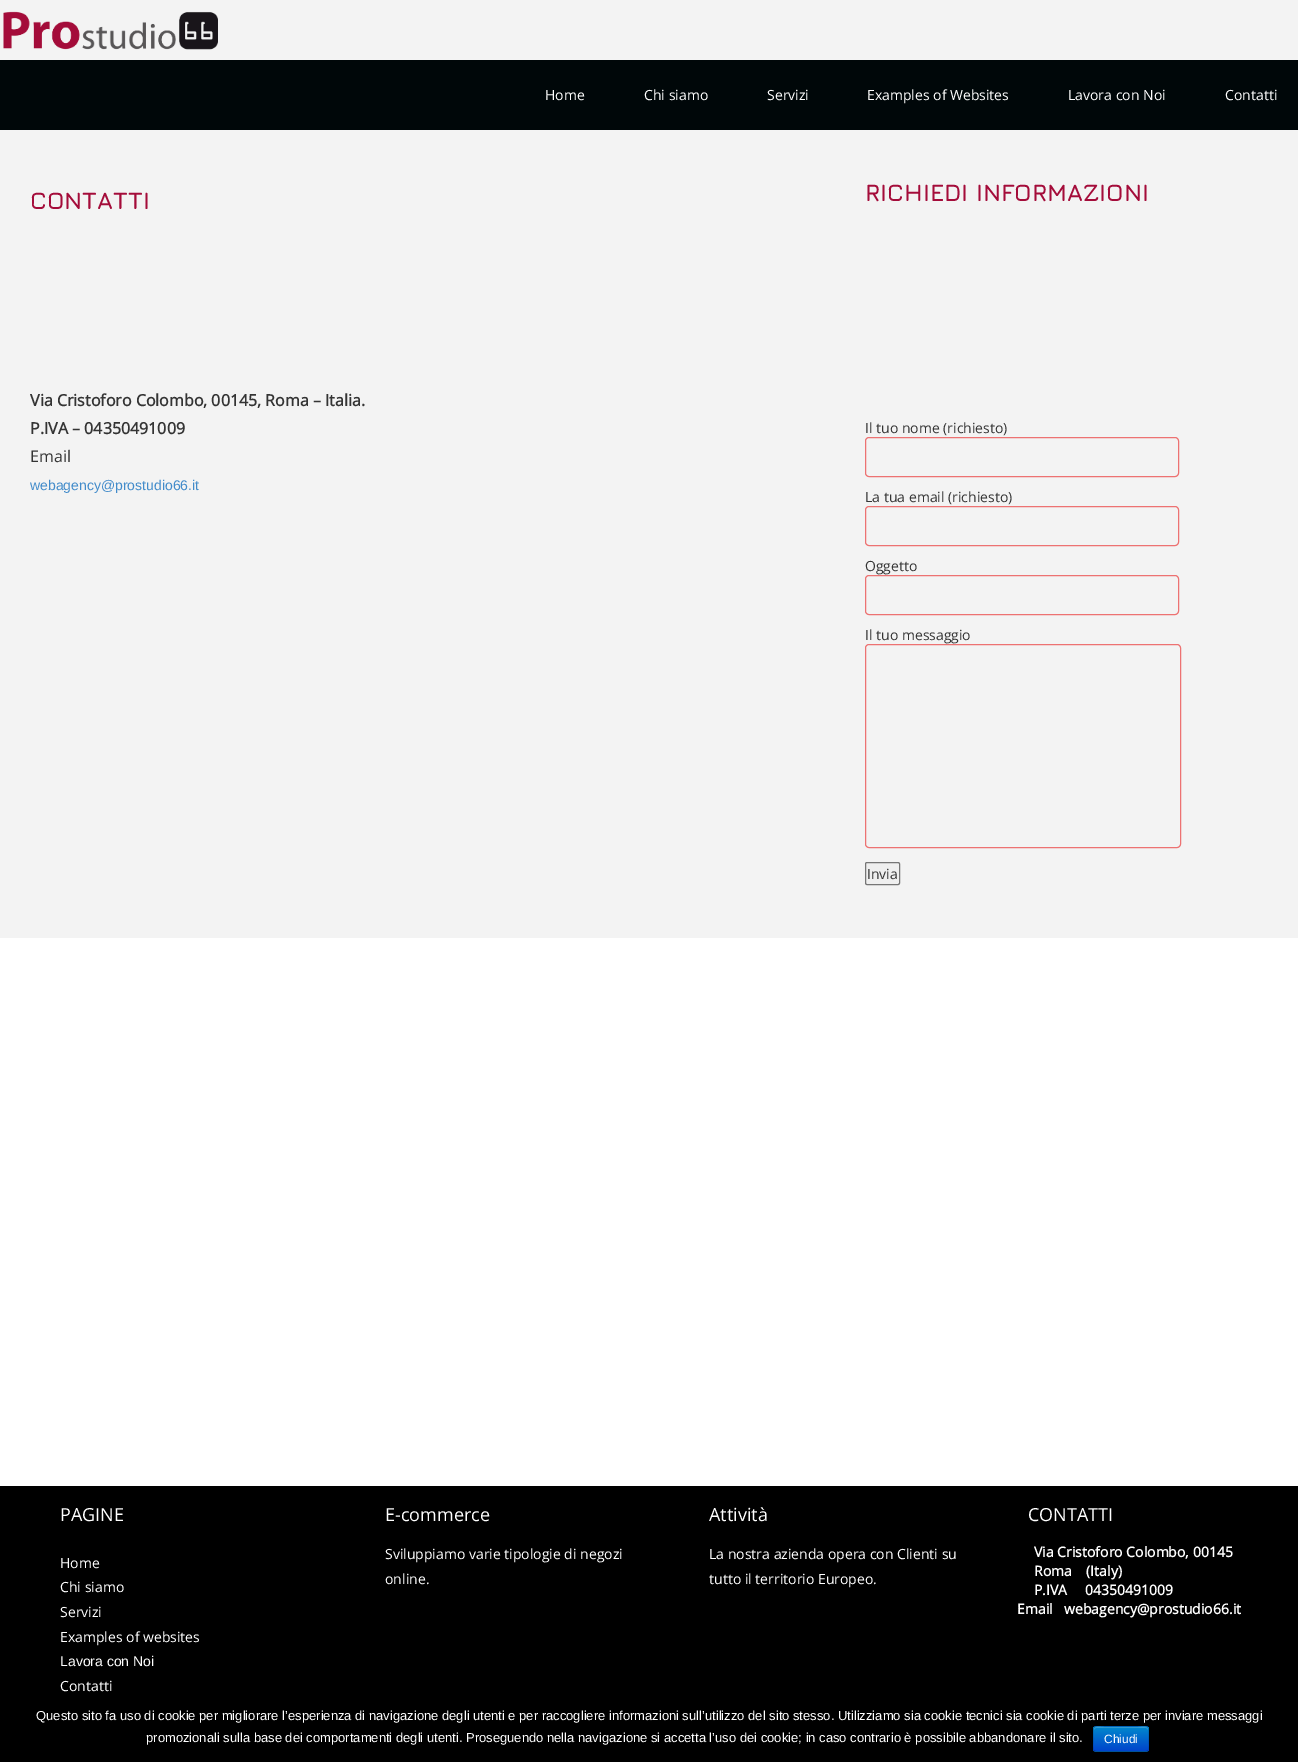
%!PS
<< /PageSize [1298 1762] /PageUsesTransparency true >> setpagedevice
/rgb { 3 { 255 div 3 1 roll } repeat setrgbcolor } def
/font { [ exch dup neg 0 0 3 -1 roll 0 0 ] selectfont } def
/alpha { dup .setfillconstantalpha .setstrokeconstantalpha } def
/roundrect { 5 dict begin { /r /h /w /y /x } { exch def } forall
  x r add y moveto x w add y 2 copy h add r arct x w add y h add x 1 index r arct
  x y h add x y r arct x y 2 copy exch w add exch r arct closepath end } def
/picture { 5 dict begin { /h /w /y /x /name } { exch def } forall
  gsave x y translate w h scale
  w h 8 [w 0 0 h 0 0] name (r) file false 3 colorimage grestore end } def
0 .pushpdf14devicefilter
0 1762 translate 1 -1 scale
4 setmiterlimit
255 255 255 rgb
0 0 1298 1762 rectfill
243 243 243 rgb
0 0 1298 60 rectfill
(img/1.rgb) 3 11 215 39 picture
0 7 9 rgb
0 60 1298 70 rectfill
243 243 243 rgb
0 130 1298 808 rectfill
237 114 114 rgb
865.5 437.5 313 39 3.5 roundrect stroke
865.5 506.5 313 39 3.5 roundrect stroke
865.5 575.5 313 39 3.5 roundrect stroke
865.5 644.5 315 203 3.5 roundrect stroke
239 239 239 rgb
865.5 862.5 34 22 1.5 roundrect gsave fill grestore
118 118 118 rgb
stroke
0 0 0 rgb
0 1486 1298 276 rectfill
0 109 204 rgb
1093 1726 56 26 3 roundrect fill
gsave
1093 1726 56 26 3 roundrect clip newpath
gsave 1093 1727 moveto 1149 1727 lineto 1149 1751 lineto 1093 1751 lineto closepath clip newpath
<< /ShadingType 2 /ColorSpace /DeviceRGB /Coords [1121 1727 1121 1751] /Extend [true true] /Function << /FunctionType 2 /Domain [0 1] /C0 [0 0.533 0.8] /C1 [0 0.267 0.8] /N 1 >> >> shfill grestore
grestore
51 159 214 rgb
1096 1728 moveto 1146 1728 lineto 1147 1728 1148 1729 1148 1730 curveto 1148 1725 1142 1727 1138 1727 curveto 1104 1727 lineto 1100 1727 1094 1725 1094 1730 curveto 1094 1729 1095 1728 1096 1728 curveto closepath fill
0.25 alpha
0 0 0 rgb
1148 1751 moveto 1146 1751.5 lineto 1096 1751.5 lineto 1094 1751 lineto stroke
0.1 alpha
1094 1751 moveto 1092.5 1749 1093.5 1741.5 1093.5 1739 curveto 1093.5 1725 1091 1726.5 1104.5 1726.5 curveto 1137.5 1726.5 lineto 1151 1726.5 1148.5 1725 1148.5 1739 curveto 1148.5 1741.5 1149.5 1749 1148 1751 curveto stroke
/OpenSans-Regular 14 font
1 alpha
255 255 255 rgb
[
  [(Home) 545 100]
  [(Chi siamo) 644 100]
  [(Servizi) 767 100]
  [(Examples of Websites) 867 100]
  [(Lavora con Noi) 1068 100]
  [(Contatti) 1225 100]
] { aload pop moveto show } forall
/Jura-Bold 24 font
164 12 58 rgb
30 209 moveto (CONTATTI) show
/OpenSans-Bold 16 font
52 52 52 rgb
30 406 moveto (Via Cristoforo Colombo, 00145, Roma – Italia.) show
30 434 moveto (P.IVA – 04350491009) show
/OpenSans-Regular 16 font
30 462 moveto (Email) show
/LiberationSans-Regular 14 font
66 139 202 rgb
30 490 moveto (webagency@prostudio66.it) show
/Jura-Bold 24 font
164 12 58 rgb
865 201 moveto (RICHIEDI INFORMAZIONI) show
/OpenSans-Regular 14 font
52 52 52 rgb
[
  [(Il tuo nome \(richiesto\)) 865 433]
  [(La tua email \(richiesto\)) 865 502]
  [(Oggetto) 865 571]
  [(Il tuo messaggio) 865 640]
  [(Invia) 867 879]
] { aload pop moveto show } forall
/OpenSans-Regular 18 font
255 255 255 rgb
60 1521 moveto (PAGINE) show
/OpenSans-Regular 14 font
[
  [(Home) 60 1568]
  [(Chi siamo) 60 1592]
  [(Servizi) 60 1617]
  [(Examples of websites) 60 1642]
] { aload pop moveto show } forall
/LiberationSans-Regular 14 font
60 1666 moveto (Lavora con Noi) show
/OpenSans-Regular 14 font
60 1691 moveto (Contatti) show
/OpenSans-Regular 18 font
385 1521 moveto (E-commerce) show
/OpenSans-Regular 14 font
385 1559 moveto (Sviluppiamo varie tipologie di negozi) show
385 1584 moveto (online.) show
/OpenSans-Regular 18 font
709 1521 moveto (Attività) show
/OpenSans-Regular 14 font
709 1559 moveto (La nostra azienda opera con Clienti su) show
709 1584 moveto (tutto il territorio Europeo.) show
/OpenSans-Regular 18 font
1028 1521 moveto (CONTATTI) show
/OpenSans-Bold 14 font
[
  [(Via Cristoforo Colombo, 00145) 1034 1557]
  [(Roma    \(Italy\)) 1034 1576]
  [(P.IVA     04350491009) 1034 1595]
  [(Email) 1017 1614]
  [(webagency@prostudio66.it) 1064 1614]
] { aload pop moveto show } forall
/LiberationSans-Regular 13 font
36 1720 moveto (Questo sito fa uso di cookie per migliorare l’esperienza di navigazione degli utenti e per raccogliere informazioni sull’utilizzo del sito stesso. Utilizziamo sia cookie tecnici sia cookie di parti terze per inviare messaggi) show
146 1742 moveto (promozionali sulla base dei comportamenti degli utenti. Proseguendo nella navigazione si accetta l’uso dei cookie; in caso contrario è possibile abbandonare il sito.) show
/LiberationSans-Regular 12 font
1104 1743 moveto (Chiudi) show
.poppdf14devicefilter showpage
